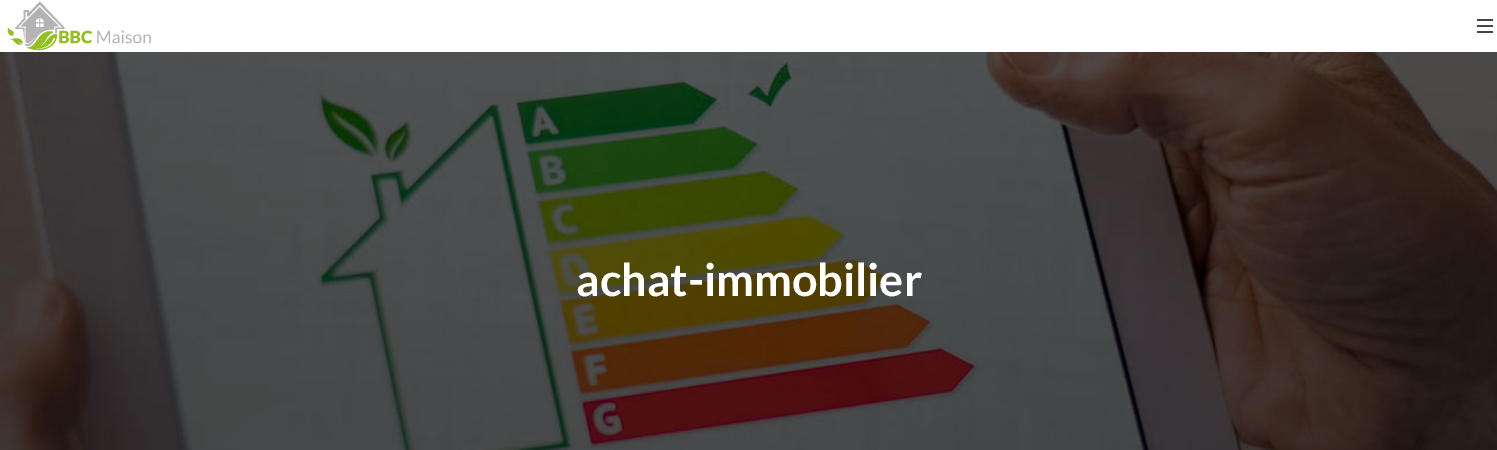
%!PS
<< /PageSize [1497 450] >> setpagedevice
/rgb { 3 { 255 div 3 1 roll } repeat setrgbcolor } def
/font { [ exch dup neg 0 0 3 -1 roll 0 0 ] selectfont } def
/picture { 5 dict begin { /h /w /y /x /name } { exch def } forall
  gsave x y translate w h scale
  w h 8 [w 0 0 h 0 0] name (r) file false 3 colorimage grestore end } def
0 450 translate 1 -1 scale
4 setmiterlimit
255 255 255 rgb
0 0 1497 450 rectfill
(img/1.rgb) 7 1 144 50 picture
(img/2.rgb) 1476 19 18 14 picture
(img/3.rgb) 0 52 1497 398 picture
/Lato-Bold 45 font
576 296 moveto (achat-immobilier) show
showpage
